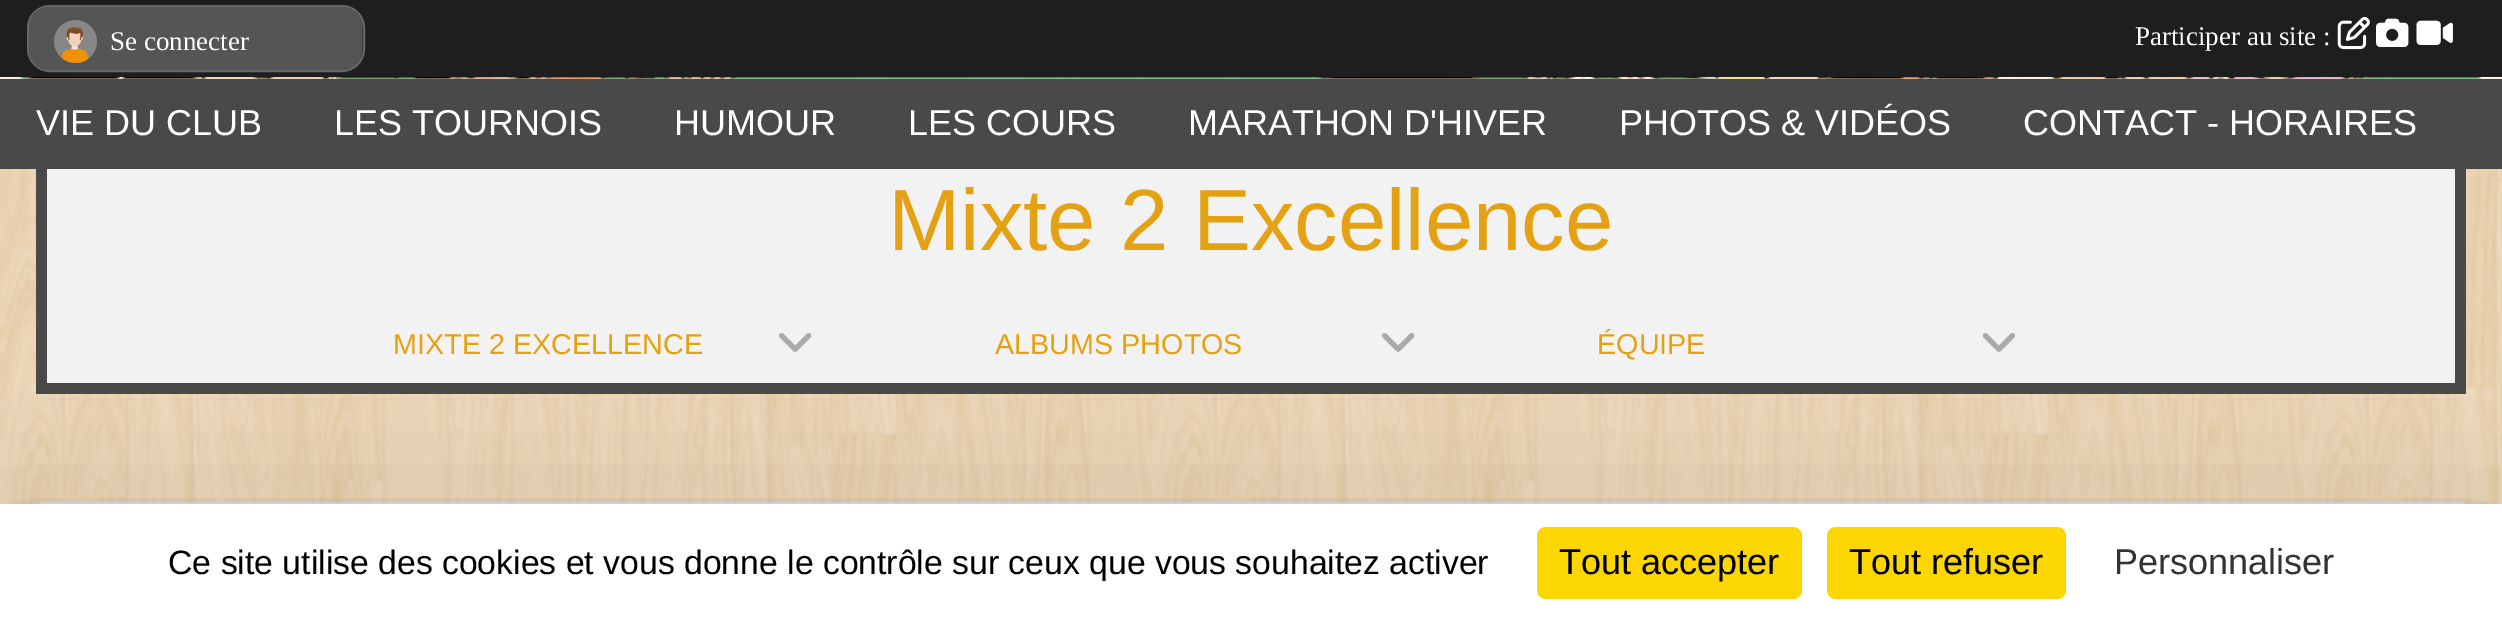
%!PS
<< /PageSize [2502 620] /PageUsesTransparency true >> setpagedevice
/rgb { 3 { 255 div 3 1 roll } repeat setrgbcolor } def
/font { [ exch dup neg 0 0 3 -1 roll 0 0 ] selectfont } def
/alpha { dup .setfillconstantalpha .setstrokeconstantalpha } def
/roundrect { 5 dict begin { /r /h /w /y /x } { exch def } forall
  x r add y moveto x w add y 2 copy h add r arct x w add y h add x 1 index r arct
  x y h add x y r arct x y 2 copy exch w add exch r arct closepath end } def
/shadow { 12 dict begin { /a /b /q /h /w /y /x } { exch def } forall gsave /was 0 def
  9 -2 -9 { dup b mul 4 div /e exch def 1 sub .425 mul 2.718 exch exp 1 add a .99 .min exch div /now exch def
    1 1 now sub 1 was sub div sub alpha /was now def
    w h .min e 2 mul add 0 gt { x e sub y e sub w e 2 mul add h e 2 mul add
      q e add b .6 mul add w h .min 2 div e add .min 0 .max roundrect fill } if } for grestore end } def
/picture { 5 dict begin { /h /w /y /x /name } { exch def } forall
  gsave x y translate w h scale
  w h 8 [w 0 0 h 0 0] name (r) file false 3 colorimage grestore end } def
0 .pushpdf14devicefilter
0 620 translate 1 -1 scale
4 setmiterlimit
255 255 255 rgb
0 0 2502 620 rectfill
(img/1.rgb) 0 78 2502 426 picture
30 30 30 rgb
0 0 2502 77 rectfill
51 51 51 rgb
28 6 336 65 22 roundrect gsave fill grestore
102 102 102 rgb
2 setlinewidth
stroke
85 85 85 rgb
29 7 333 63 20 roundrect fill
(img/2.rgb) 54 20 43 43 picture
(img/3.rgb) 2337 16 33 34 picture
(img/4.rgb) 2376 18 33 29 picture
(img/5.rgb) 2416 20 37 25 picture
(img/6.rgb) 0 77 2502 2 picture
[
  [0 79 2502 90 73 73 73]
  [47 169 2408 214 242 242 242]
  [2455 169 11 214 73 73 73]
  [47 383 2419 11 73 73 73]
  [36 169 11 225 73 73 73]
] { aload pop rgb rectfill } forall
(img/7.rgb) 779 333 33 19 picture
(img/7.rgb) 1382 333 33 19 picture
(img/8.rgb) 1982 333 33 19 picture
225 225 225 rgb
37 503 2428 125 6 roundrect stroke
0 0 0 rgb
0 549 2502 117 0 67.5 0.25 shadow
255 255 255 rgb
0 504 2502 116 rectfill
251 214 0 rgb
1537 527 265 72 9 roundrect fill
1827 527 239 72 9 roundrect fill
/LiberationSerif-Regular 27 font
255 255 255 rgb
110 50 moveto (Se connecter) show
2135 45 moveto (Participer au site :) show
/LiberationSans-Regular 36 font
[
  [(VIE DU CLUB) 36 135]
  [(LES TOURNOIS) 334 135]
  [(HUMOUR) 674 135]
  [(LES COURS) 908 135]
  [(MARATHON D'HIVER) 1188 135]
  [(PHOTOS & VIDÉOS) 1619 135]
  [(CONTACT - HORAIRES) 2023 135]
] { aload pop moveto show } forall
/LiberationSans-Regular 87 font
228 161 20 rgb
888 250 moveto (Mixte 2 Excellence) show
/LiberationSans-Regular 28.75 font
[
  [(MIXTE 2 EXCELLENCE) 393 354]
  [(ALBUMS PHOTOS) 995 354]
  [(ÉQUIPE) 1597 354]
] { aload pop moveto show } forall
/LiberationSans-Regular 33.75 font
0 0 0 rgb
168 574 moveto (Ce site utilise des cookies et vous donne le contrôle sur ceux que vous souhaitez activer) show
/LiberationSans-Regular 36 font
1559 574 moveto (Tout accepter) show
1849 574 moveto (Tout refuser) show
51 51 51 rgb
2114 574 moveto (Personnaliser) show
.poppdf14devicefilter showpage
